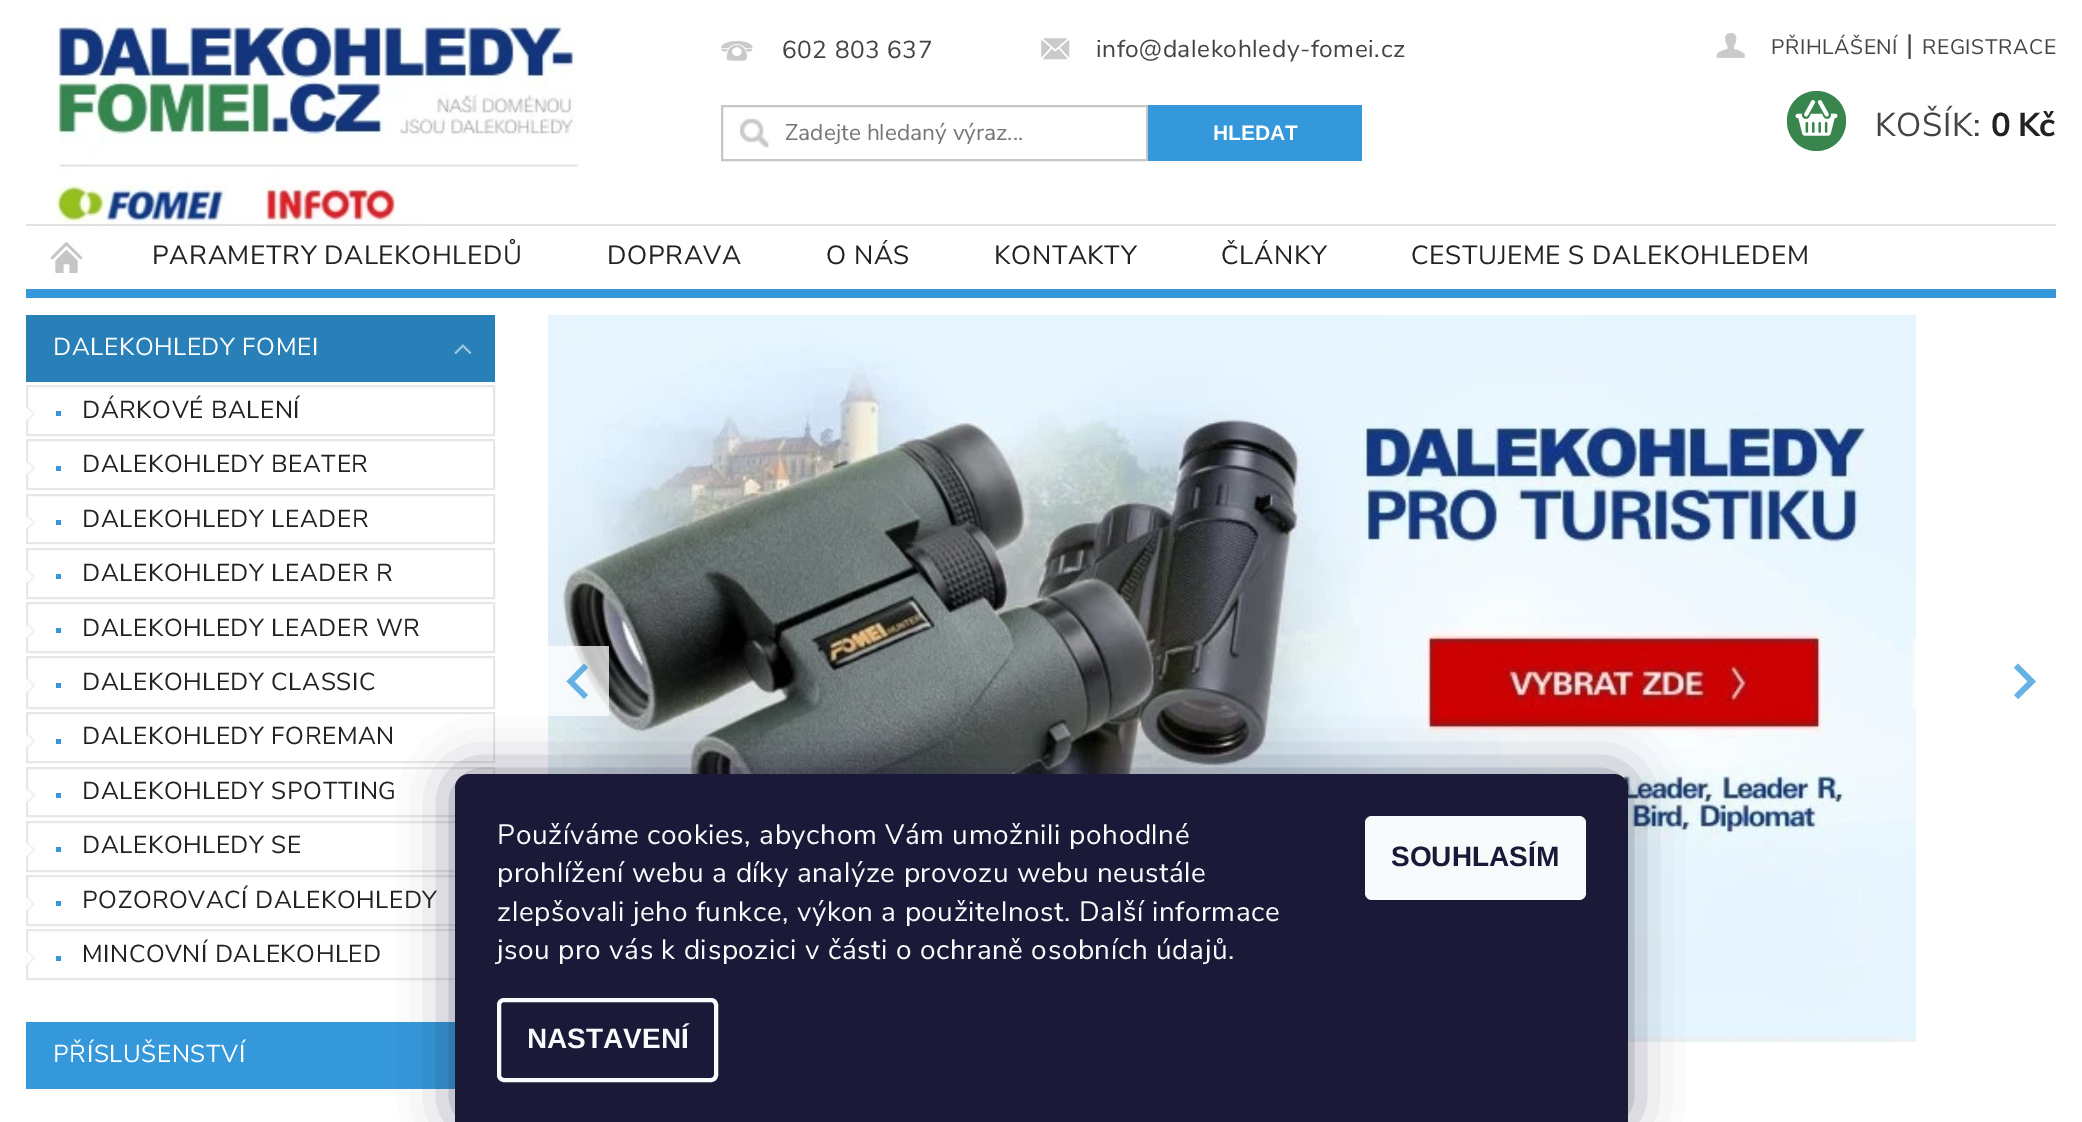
%!PS
<< /PageSize [2082 1122] /PageUsesTransparency true >> setpagedevice
/rgb { 3 { 255 div 3 1 roll } repeat setrgbcolor } def
/font { [ exch dup neg 0 0 3 -1 roll 0 0 ] selectfont } def
/alpha { dup .setfillconstantalpha .setstrokeconstantalpha } def
/roundrect { 5 dict begin { /r /h /w /y /x } { exch def } forall
  x r add y moveto x w add y 2 copy h add r arct x w add y h add x 1 index r arct
  x y h add x y r arct x y 2 copy exch w add exch r arct closepath end } def
/shadow { 12 dict begin { /a /b /q /h /w /y /x } { exch def } forall gsave /was 0 def
  9 -2 -9 { dup b mul 4 div /e exch def 1 sub .425 mul 2.718 exch exp 1 add a .99 .min exch div /now exch def
    1 1 now sub 1 was sub div sub alpha /was now def
    w h .min e 2 mul add 0 gt { x e sub y e sub w e 2 mul add h e 2 mul add
      q e add b .6 mul add w h .min 2 div e add .min 0 .max roundrect fill } if } for grestore end } def
/picture { 5 dict begin { /h /w /y /x /name } { exch def } forall
  gsave x y translate w h scale
  w h 8 [w 0 0 h 0 0] name (r) file false 3 colorimage grestore end } def
0 .pushpdf14devicefilter
0 1122 translate 1 -1 scale
4 setmiterlimit
255 255 255 rgb
0 0 2082 1122 rectfill
52 152 219 rgb
26 289 2030 9 rectfill
(img/1.rgb) 55 17 524 211 picture
(img/2.rgb) 721 41 32 20 picture
(img/3.rgb) 1041 38 29 22 picture
(img/4.rgb) 740 118 29 30 picture
198 198 198 rgb
2 setlinewidth
722 106 425 54 rectstroke
52 152 219 rgb
1148 105 214 56 rectfill
(img/5.rgb) 1716 33 29 25 picture
56 133 77 rgb
1787 91 59 60 29.5 roundrect fill
(img/6.rgb) 1795 100 43 36 picture
224 224 224 rgb
26 224 2030 2 rectfill
(img/7.rgb) 50 242 33 31 picture
41 128 185 rgb
26 315 469 67 rectfill
(img/8.rgb) 454 344 17 10 picture
231 231 231 rgb
27 386 467 49 rectstroke
(img/9.rgb) 26 406 10 15 picture
52 152 219 rgb
56 411 5 5 rectfill
231 231 231 rgb
27 440 467 49 rectstroke
(img/10.rgb) 26 460 10 16 picture
52 152 219 rgb
56 466 5 5 rectfill
231 231 231 rgb
27 495 467 48 rectstroke
(img/11.rgb) 26 515 10 15 picture
52 152 219 rgb
56 520 5 5 rectfill
231 231 231 rgb
27 549 467 49 rectstroke
(img/12.rgb) 26 569 10 15 picture
52 152 219 rgb
56 574 5 5 rectfill
231 231 231 rgb
27 603 467 49 rectstroke
(img/9.rgb) 26 623 10 15 picture
52 152 219 rgb
56 628 5 5 rectfill
231 231 231 rgb
27 657 467 51 rectstroke
(img/13.rgb) 26 677 10 17 picture
52 152 219 rgb
56 683 5 5 rectfill
231 231 231 rgb
27 713 467 49 rectstroke
(img/10.rgb) 26 733 10 16 picture
52 152 219 rgb
56 739 5 5 rectfill
231 231 231 rgb
27 768 467 48 rectstroke
(img/11.rgb) 26 788 10 15 picture
52 152 219 rgb
56 793 5 5 rectfill
231 231 231 rgb
27 822 467 49 rectstroke
(img/12.rgb) 26 842 10 15 picture
52 152 219 rgb
56 847 5 5 rectfill
231 231 231 rgb
27 876 467 49 rectstroke
(img/9.rgb) 26 896 10 15 picture
52 152 219 rgb
56 901 5 5 rectfill
231 231 231 rgb
27 930 467 49 rectstroke
(img/10.rgb) 26 950 10 16 picture
52 152 219 rgb
56 956 5 5 rectfill
26 1022 429 67 rectfill
(img/14.rgb) 548 315 1369 728 picture
0.75 alpha
255 255 255 rgb
548 646 61 70 rectfill
52 152 219 rgb
584 663.5 moveto 566.5 681.5 lineto 584 699 lineto 588 695 lineto 574.5 681.5 lineto 588 667.5 lineto closepath fill
1 alpha
103 178 228 rgb
2018 663.5 moveto 2036 681.5 lineto 2018 699 lineto 2014 695 lineto 2027.5 681.5 lineto 2014 667.5 lineto closepath fill
27 25 57 rgb
455 774 1173 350 14 26 0.5 shadow
26 25 55 rgb
469 774 moveto 1614 774 lineto 1621.5 774 1628 780.5 1628 788 curveto 1628 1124 lineto 455 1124 lineto 455 788 lineto 455 780.5 461.5 774 469 774 curveto closepath fill
248 250 251 rgb
4 setlinewidth
499 1000 217 80 5 roundrect stroke
1365 816 221 84 7 roundrect fill
/NunitoSans-Regular 24.5 font
68 68 68 rgb
782 58 moveto 0.55 0 (602 803 637) ashow
1096 57 moveto 0.55 0 (info@dalekohledy-fomei.cz) ashow
/NunitoSans-Regular 22.75 font
117 117 117 rgb
785 140 moveto (Zadejte hledaný výraz...) show
/LiberationSans-Bold 21 font
255 255 255 rgb
1213 140 moveto (HLEDAT) show
/NunitoSans-Regular 21 font
68 68 68 rgb
1771 54 moveto 0.55 0 (PŘIHLÁŠENÍ) ashow
/NunitoSans-Regular 28 font
1906 54 moveto 0.55 0 (|) ashow
/NunitoSans-Regular 21 font
1922 54 moveto 0.55 0 (REGISTRACE) ashow
/NunitoSans-Regular 33 font
1875 136 moveto 0.55 0 (KOŠÍK:) ashow
/NunitoSans-Bold 33 font
34 34 34 rgb
1991 136 moveto -1 0 (0 Kč) ashow
/NunitoSans-Regular 26.25 font
152 264 moveto 0.55 0 (PARAMETRY DALEKOHLEDŮ) ashow
607 264 moveto 0.55 0 (DOPRAVA) ashow
826 264 moveto 0.55 0 (O NÁS) ashow
994 264 moveto 0.55 0 (KONTAKTY) ashow
1221 264 moveto 0.55 0 (ČLÁNKY) ashow
1411 264 moveto 0.55 0 (CESTUJEME S DALEKOHLEDEM) ashow
/NunitoSans-Regular 24.5 font
255 255 255 rgb
53 355 moveto 0.55 0 (DALEKOHLEDY FOMEI) ashow
34 34 34 rgb
82 418 moveto 0.55 0 (DÁRKOVÉ BALENÍ) ashow
82 472 moveto 0.55 0 (DALEKOHLEDY BEATER) ashow
82 527 moveto 0.55 0 (DALEKOHLEDY LEADER) ashow
82 581 moveto 0.55 0 (DALEKOHLEDY LEADER R) ashow
82 636 moveto 0.55 0 (DALEKOHLEDY LEADER WR) ashow
82 690 moveto 0.55 0 (DALEKOHLEDY CLASSIC) ashow
82 744 moveto 0.55 0 (DALEKOHLEDY FOREMAN) ashow
82 799 moveto 0.55 0 (DALEKOHLEDY SPOTTING) ashow
82 853 moveto 0.55 0 (DALEKOHLEDY SE) ashow
82 908 moveto 0.55 0 (POZOROVACÍ DALEKOHLEDY) ashow
82 962 moveto 0.55 0 (MINCOVNÍ DALEKOHLED) ashow
255 255 255 rgb
53 1062 moveto 0.55 0 (PŘÍSLUŠENSTVÍ) ashow
/NunitoSans-Regular 28 font
248 250 251 rgb
497 844 moveto 0.55 0 (Používáme cookies, abychom Vám umožnili pohodlné) ashow
497 882 moveto 0.55 0 (prohlížení webu a díky analýze provozu webu neustále) ashow
497 921 moveto 0.55 0 (zlepšovali jeho funkce, výkon a použitelnost. Další informace) ashow
497 959 moveto 0.55 0 (jsou pro vás k dispozici v části o ochraně osobních údajů.) ashow
/LiberationSans-Bold 28 font
527 1048 moveto (NASTAVENÍ) show
26 25 55 rgb
1391 866 moveto (SOUHLASÍM) show
.poppdf14devicefilter showpage
